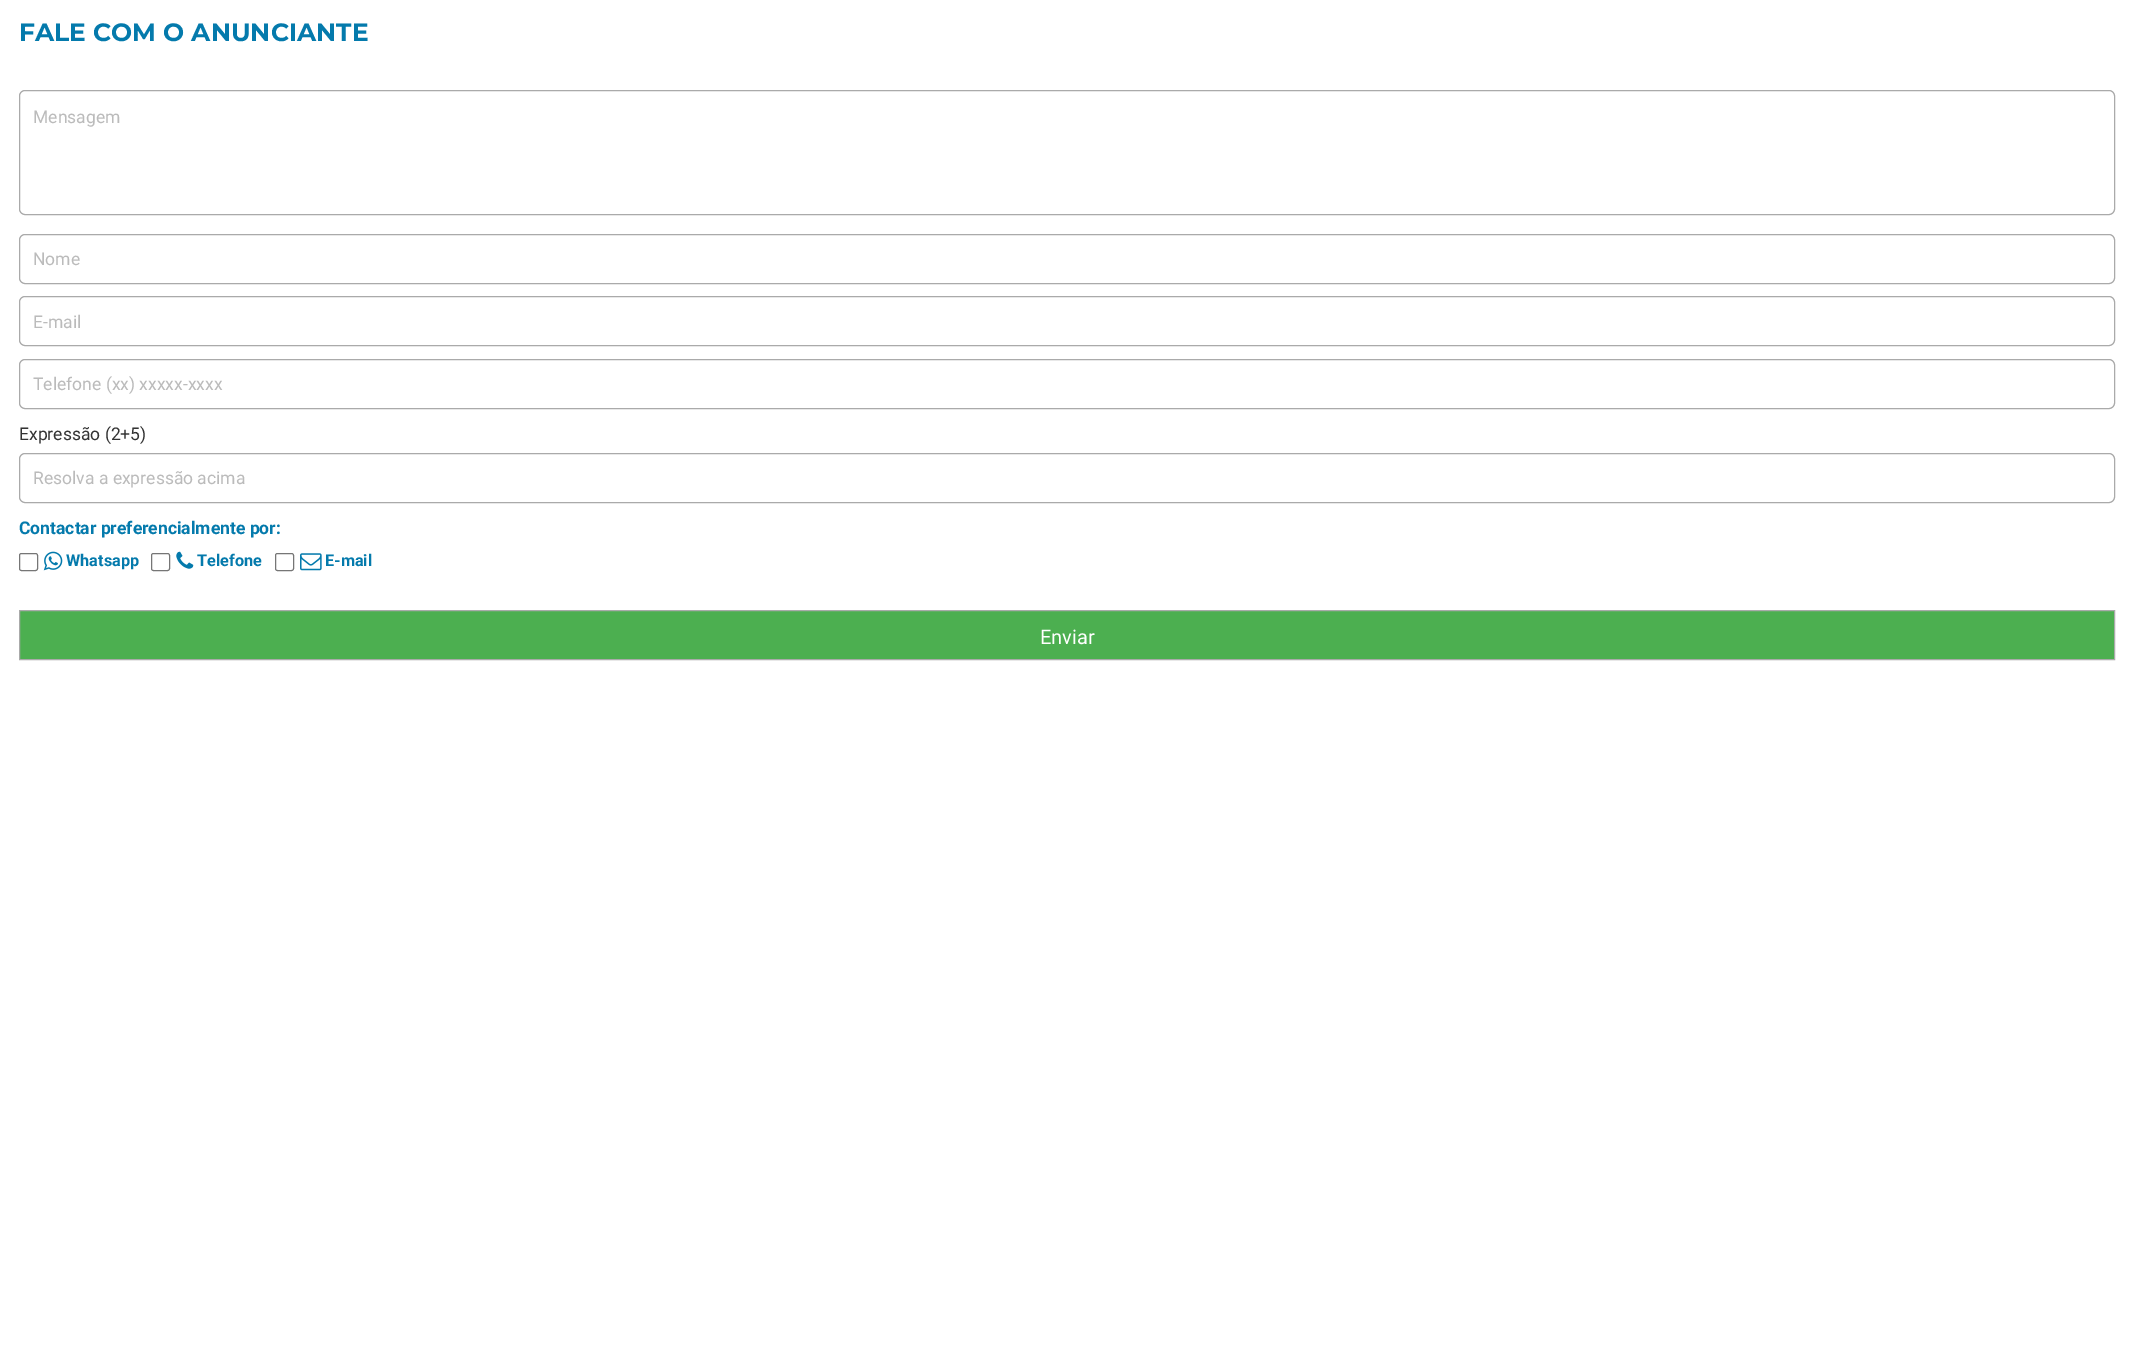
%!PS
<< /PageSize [2133 1360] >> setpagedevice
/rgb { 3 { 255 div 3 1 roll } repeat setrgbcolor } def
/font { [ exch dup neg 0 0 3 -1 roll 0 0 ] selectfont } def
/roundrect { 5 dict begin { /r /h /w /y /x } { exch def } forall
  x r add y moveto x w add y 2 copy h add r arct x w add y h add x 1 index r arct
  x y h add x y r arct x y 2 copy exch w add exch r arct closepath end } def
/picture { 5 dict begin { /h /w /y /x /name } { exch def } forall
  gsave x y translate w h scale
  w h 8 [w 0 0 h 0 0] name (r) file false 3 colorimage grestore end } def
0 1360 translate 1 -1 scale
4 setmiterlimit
255 255 255 rgb
0 0 2133 1360 rectfill
170 170 170 rgb
19.5 90.5 2095 124 5.5 roundrect stroke
19.5 234.5 2095 49 5.5 roundrect stroke
19.5 296.5 2095 49 5.5 roundrect stroke
19.5 359.5 2095 49 5.5 roundrect stroke
19.5 453.5 2095 49 5.5 roundrect stroke
118 118 118 rgb
19.5 553.5 18 17 2 roundrect stroke
(img/1.rgb) 43 551 20 20 picture
151.5 553.5 18 17 2 roundrect stroke
(img/2.rgb) 176 551 18 18 picture
275.5 553.5 18 17 2 roundrect stroke
(img/3.rgb) 300 553 22 18 picture
76 175 80 rgb
19.5 610.5 moveto 2114.5 610.5 lineto 2114.5 659.5 lineto 19.5 659.5 lineto closepath gsave fill grestore
170 170 170 rgb
stroke
/Montserrat-Bold 25 font
4 122 172 rgb
19 41 moveto (FALE COM O ANUNCIANTE) show
/Roboto-Regular 17.5 font
187 187 187 rgb
[
  [(Mensagem) 33 123]
  [(Nome) 33 265]
  [(E-mail) 33 328]
  [(Telefone \(xx\) xxxxx-xxxx) 33 390]
] { aload pop moveto show } forall
51 51 51 rgb
19 440 moveto (Expressão \(2+5\)) show
187 187 187 rgb
33 484 moveto (Resolva a expressão acima) show
/Roboto-Bold 17.5 font
4 122 172 rgb
19 534 moveto (Contactar preferencialmente por:) show
/Roboto-Bold 16.25 font
[
  [(Whatsapp) 66 566]
  [(Telefone) 197 566]
  [(E-mail) 325 566]
] { aload pop moveto show } forall
/Roboto-Regular 20 font
255 255 255 rgb
1040 644 moveto (Enviar) show
showpage
